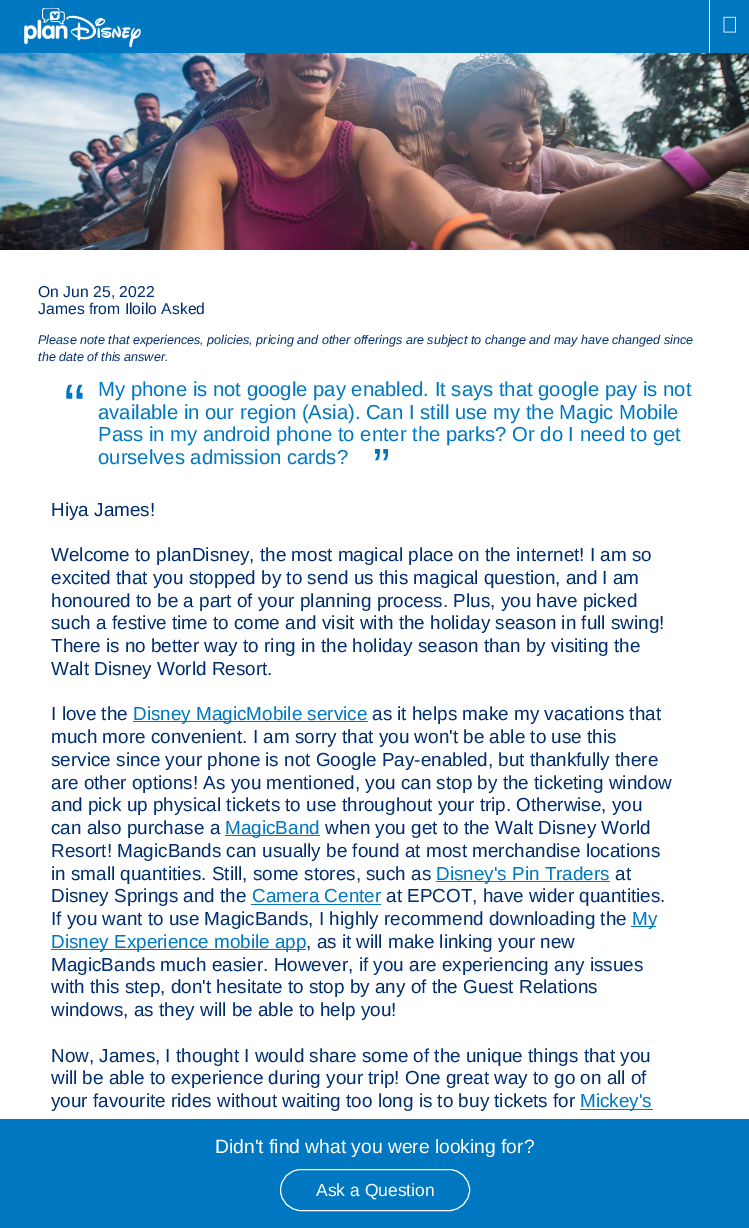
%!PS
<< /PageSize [749 1228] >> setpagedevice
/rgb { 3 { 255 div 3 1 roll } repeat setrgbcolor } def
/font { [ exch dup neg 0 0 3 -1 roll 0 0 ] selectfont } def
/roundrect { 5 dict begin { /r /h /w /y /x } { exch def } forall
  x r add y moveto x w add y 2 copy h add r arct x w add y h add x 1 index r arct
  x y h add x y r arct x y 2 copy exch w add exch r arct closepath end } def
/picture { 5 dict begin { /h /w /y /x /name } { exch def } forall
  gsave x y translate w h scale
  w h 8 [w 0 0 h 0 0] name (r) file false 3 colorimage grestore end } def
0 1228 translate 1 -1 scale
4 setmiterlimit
255 255 255 rgb
0 0 749 1228 rectfill
0 120 193 rgb
0 0 749 53 rectfill
(img/1.rgb) 24 8 117 40 picture
255 255 255 rgb
709 0 1 53 rectfill
(img/2.rgb) 723 16 14 17 picture
(img/3.rgb) 0 53 749 197 picture
[
  [133 721 235 1 0 120 193]
  [225 835 95 1 0 120 193]
  [436 881 174 1 0 120 193]
  [251 904 130 1 0 120 193]
  [631 926 25 1 0 120 193]
  [51 949 255 1 0 120 193]
  [580 1109 73 1 0 120 193]
  [0 1119 749 109 0 120 193]
] { aload pop rgb rectfill } forall
255 255 255 rgb
280.5 1169.5 189 41 20.5 roundrect stroke
/LiberationSans-Regular 15.75 font
0 46 110 rgb
38 297 moveto (On Jun 25, 2022) show
38 314 moveto (James from Iloilo Asked) show
/LiberationSans-Italic 12.6 font
38 344 moveto (Please note that experiences, policies, pricing and other offerings are subject to change and may have changed since) show
38 361 moveto (the date of this answer.) show
/LiberationSans-Regular 63 font
0 120 193 rgb
64 428 moveto (“) show
/LiberationSans-Regular 20.25 font
[
  [(My phone is not google pay enabled. It says that google pay is not) 98 396]
  [(available in our region \(Asia\). Can I still use my the Magic Mobile) 98 419]
  [(Pass in my android phone to enter the parks? Or do I need to get) 98 441]
  [(ourselves admission cards?) 98 464]
] { aload pop moveto show } forall
/LiberationSans-Regular 51 font
373 484 moveto (”) show
/LiberationSans-Regular 18.9 font
0 46 110 rgb
[
  [(Hiya James!) 51 516]
  [(Welcome to planDisney, the most magical place on the internet! I am so) 51 561]
  [(excited that you stopped by to send us this magical question, and I am) 51 584]
  [(honoured to be a part of your planning process. Plus, you have picked) 51 607]
  [(such a festive time to come and visit with the holiday season in full swing!) 51 629]
  [(There is no better way to ring in the holiday season than by visiting the) 51 652]
  [(Walt Disney World Resort.) 51 675]
  [(I love the) 51 720]
] { aload pop moveto show } forall
0 120 193 rgb
133 720 moveto (Disney MagicMobile service) show
0 46 110 rgb
[
  [(as it helps make my vacations that) 372 720]
  [(much more convenient. I am sorry that you won't be able to use this) 51 743]
  [(service since your phone is not Google Pay-enabled, but thankfully there) 51 766]
  [(are other options! As you mentioned, you can stop by the ticketing window) 51 789]
  [(and pick up physical tickets to use throughout your trip. Otherwise, you) 51 811]
  [(can also purchase a) 51 834]
] { aload pop moveto show } forall
0 120 193 rgb
225 834 moveto (MagicBand) show
0 46 110 rgb
[
  [(when you get to the Walt Disney World) 325 834]
  [(Resort! MagicBands can usually be found at most merchandise locations) 51 857]
  [(in small quantities. Still, some stores, such as) 51 880]
] { aload pop moveto show } forall
0 120 193 rgb
436 880 moveto (Disney's Pin Traders) show
0 46 110 rgb
615 880 moveto (at) show
51 902 moveto (Disney Springs and the) show
0 120 193 rgb
252 902 moveto (Camera Center) show
0 46 110 rgb
386 902 moveto (at EPCOT, have wider quantities.) show
51 925 moveto (If you want to use MagicBands, I highly recommend downloading the) show
0 120 193 rgb
632 925 moveto (My) show
51 948 moveto (Disney Experience mobile app) show
0 46 110 rgb
[
  [(, as it will make linking your new) 306 948]
  [(MagicBands much easier. However, if you are experiencing any issues) 51 971]
  [(with this step, don't hesitate to stop by any of the Guest Relations) 51 993]
  [(windows, as they will be able to help you!) 51 1016]
  [(Now, James, I thought I would share some of the unique things that you) 51 1062]
  [(will be able to experience during your trip! One great way to go on all of) 51 1084]
  [(your favourite rides without waiting too long is to buy tickets for) 51 1107]
] { aload pop moveto show } forall
0 120 193 rgb
580 1107 moveto (Mickey's) show
/LiberationSans-Regular 19.25 font
255 255 255 rgb
215 1153 moveto (Didn't find what you were looking for?) show
/LiberationSans-Regular 17.5 font
316 1196 moveto (Ask a Question) show
showpage
